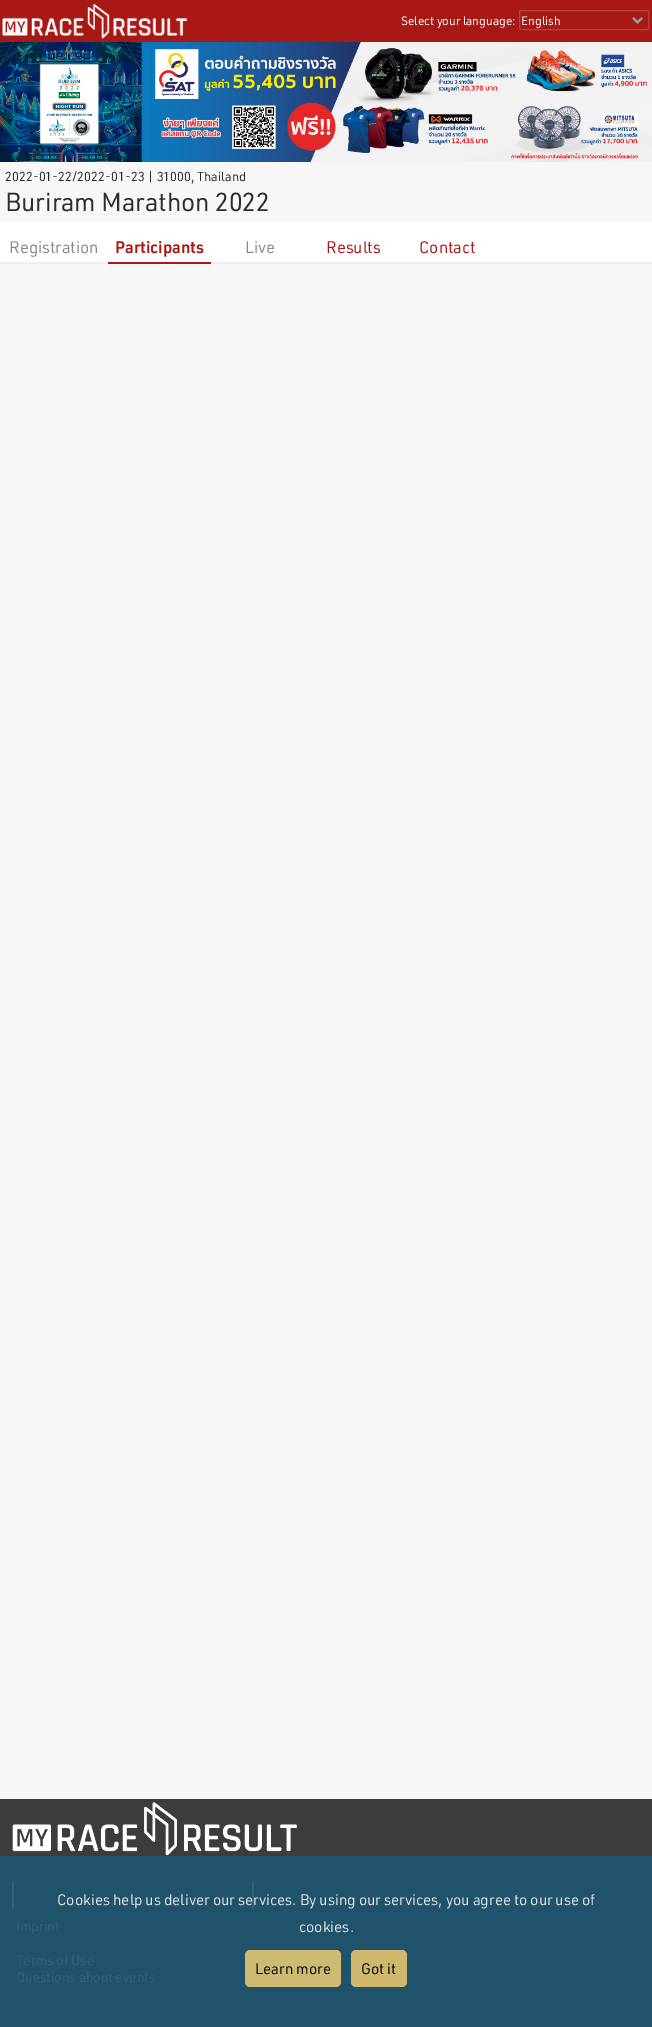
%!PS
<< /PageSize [652 2027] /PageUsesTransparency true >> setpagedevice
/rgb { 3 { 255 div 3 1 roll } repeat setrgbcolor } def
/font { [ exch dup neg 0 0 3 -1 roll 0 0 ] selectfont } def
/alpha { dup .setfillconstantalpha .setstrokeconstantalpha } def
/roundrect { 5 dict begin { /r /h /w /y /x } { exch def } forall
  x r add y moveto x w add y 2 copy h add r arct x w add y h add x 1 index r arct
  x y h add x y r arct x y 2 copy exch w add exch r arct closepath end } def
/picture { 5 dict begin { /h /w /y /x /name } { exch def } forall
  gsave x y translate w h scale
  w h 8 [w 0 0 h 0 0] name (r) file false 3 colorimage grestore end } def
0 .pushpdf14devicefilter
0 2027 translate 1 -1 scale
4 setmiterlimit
247 247 247 rgb
0 0 652 2027 rectfill
168 24 21 rgb
0 0 652 42 rectfill
(img/1.rgb) 2 4 186 35 picture
(img/2.rgb) 632 17 11 7 picture
183 67 64 rgb
519.5 10.5 129 19 1.5 roundrect stroke
(img/3.rgb) 0 42 652 120 picture
[
  [0 222 652 40 255 255 255]
  [0 262 652 2 238 238 238]
  [108 262 103 2 168 24 21]
  [0 1856 652 171 31 82 107]
] { aload pop rgb rectfill } forall
0.92 alpha
221 195 116 rgb
245 1950 96 37 5 roundrect fill
1 alpha
208 184 111 rgb
351 1950 56 37 5 roundrect fill
60 60 59 rgb
0 1799 652 57 rectfill
(img/4.rgb) 12 1802 285 54 picture
47 98 123 rgb
252 1881 2 28 rectfill
12 1881 2 28 rectfill
/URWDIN-Regular 12 font
255 255 255 rgb
401 25 moveto (Select your language:) show
521 25 moveto (English) show
/URWDIN-Regular 12.75 font
44 44 44 rgb
5 181 moveto (2022-01-22/2022-01-23 | 31000, Thailand) show
/URWDIN-Regular 25.5 font
5 211 moveto (Buriram Marathon 2022) show
/URWDIN-Regular 16.5 font
136 136 136 rgb
9 253 moveto (Registration) show
/URWDIN-SemiBold 16.5 font
168 24 21 rgb
115 253 moveto (Participants) show
/URWDIN-Regular 16.5 font
136 136 136 rgb
245 253 moveto (Live) show
168 24 21 rgb
326 253 moveto (Results) show
419 253 moveto (Contact) show
/URWDIN-Regular 15 font
222 226 228 rgb
57 1905 moveto (Cookies help us deliver our services. By using our services, you agree to our use of) show
299 1932 moveto (cookies.) show
16 15 9 rgb
255 1974 moveto (Learn more) show
5 5 5 rgb
361 1974 moveto (Got it) show
/URWDIN-Regular 13.5 font
47 98 123 rgb
[
  [(Imprint) 16 1931]
  [(Terms of Use) 16 1965]
  [(Questions about events) 16 1982]
] { aload pop moveto show } forall
.poppdf14devicefilter showpage
